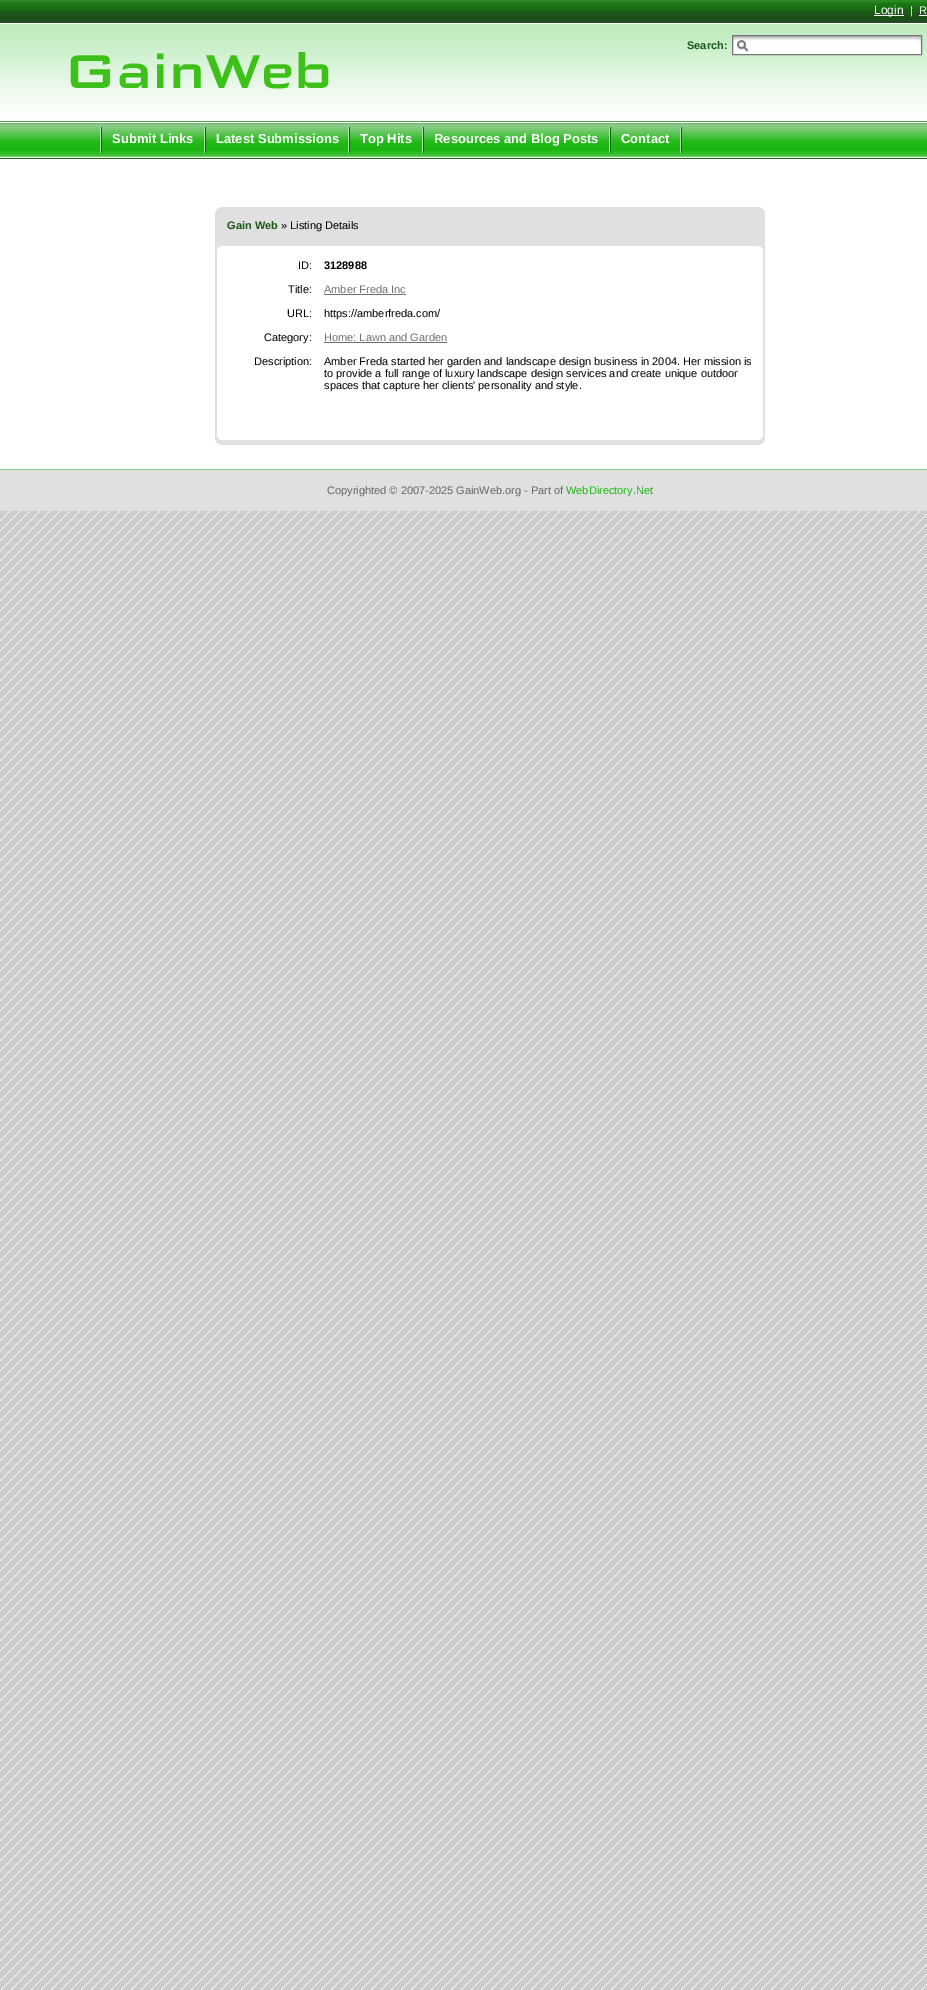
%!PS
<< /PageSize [927 1990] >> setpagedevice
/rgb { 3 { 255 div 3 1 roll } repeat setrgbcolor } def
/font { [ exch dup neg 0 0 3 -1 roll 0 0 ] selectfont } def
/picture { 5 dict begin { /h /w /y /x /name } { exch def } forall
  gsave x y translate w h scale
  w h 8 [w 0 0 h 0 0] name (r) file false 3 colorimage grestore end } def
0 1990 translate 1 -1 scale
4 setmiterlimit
255 255 255 rgb
0 0 927 1990 rectfill
(img/1.rgb) 0 511 927 1479 picture
(img/2.rgb) 0 0 927 23 picture
874 15 30 1 rectfill
919 15 8 1 rectfill
(img/3.rgb) 0 23 927 100 picture
(img/4.rgb) 733 36 188 18 picture
119 119 119 rgb
732.5 35.5 189 19 rectstroke
(img/5.rgb) 70 52 259 37 picture
(img/6.rgb) 0 123 927 36 picture
(img/7.rgb) 100 127 2 26 picture
(img/7.rgb) 204 127 2 26 picture
(img/7.rgb) 348 127 2 26 picture
(img/7.rgb) 422 127 2 26 picture
(img/7.rgb) 609 127 2 26 picture
(img/7.rgb) 680 127 2 26 picture
(img/8.rgb) 215 207 550 45 picture
(img/9.rgb) 215 252 550 182 picture
112 112 112 rgb
324 294 82 1 rectfill
324 342 123 1 rectfill
(img/10.rgb) 215 434 550 11 picture
224 224 224 rgb
0 470 927 41 rectfill
140 203 140 rgb
0 469 927 1 rectfill
/LiberationSans-Regular 12 font
255 255 255 rgb
874 14 moveto (Login) show
/LiberationSans-Regular 11 font
910 14 moveto (|) show
919 14 moveto (R) show
/LiberationSans-Bold 11 font
25 88 22 rgb
687 49 moveto (Search:) show
/LiberationSans-Bold 13 font
255 255 255 rgb
[
  [(Submit Links) 112 143]
  [(Latest Submissions) 216 143]
  [(Top Hits) 360 143]
  [(Resources and Blog Posts) 434 143]
  [(Contact) 621 143]
] { aload pop moveto show } forall
/LiberationSans-Bold 11 font
25 88 22 rgb
227 229 moveto (Gain Web) show
/LiberationSans-Regular 11 font
0 0 0 rgb
281 229 moveto (» Listing Details) show
298 269 moveto (ID:) show
/LiberationSans-Bold 11 font
324 269 moveto (3128988) show
/LiberationSans-Regular 11 font
288 293 moveto (Title:) show
112 112 112 rgb
324 293 moveto (Amber Freda Inc) show
0 0 0 rgb
[
  [(URL:) 287 317]
  [(https://amberfreda.com/) 324 317]
  [(Category:) 264 341]
] { aload pop moveto show } forall
112 112 112 rgb
324 341 moveto (Home: Lawn and Garden) show
0 0 0 rgb
[
  [(Description:) 254 365]
  [(Amber Freda started her garden and landscape design business in 2004. Her mission is) 324 365]
  [(to provide a full range of luxury landscape design services and create unique outdoor) 324 377]
  [(spaces that capture her clients' personality and style.) 324 389]
] { aload pop moveto show } forall
101 101 101 rgb
327 494 moveto (Copyrighted © 2007-2025 GainWeb.org - Part of) show
24 186 16 rgb
566 494 moveto (WebDirectory.Net) show
showpage
